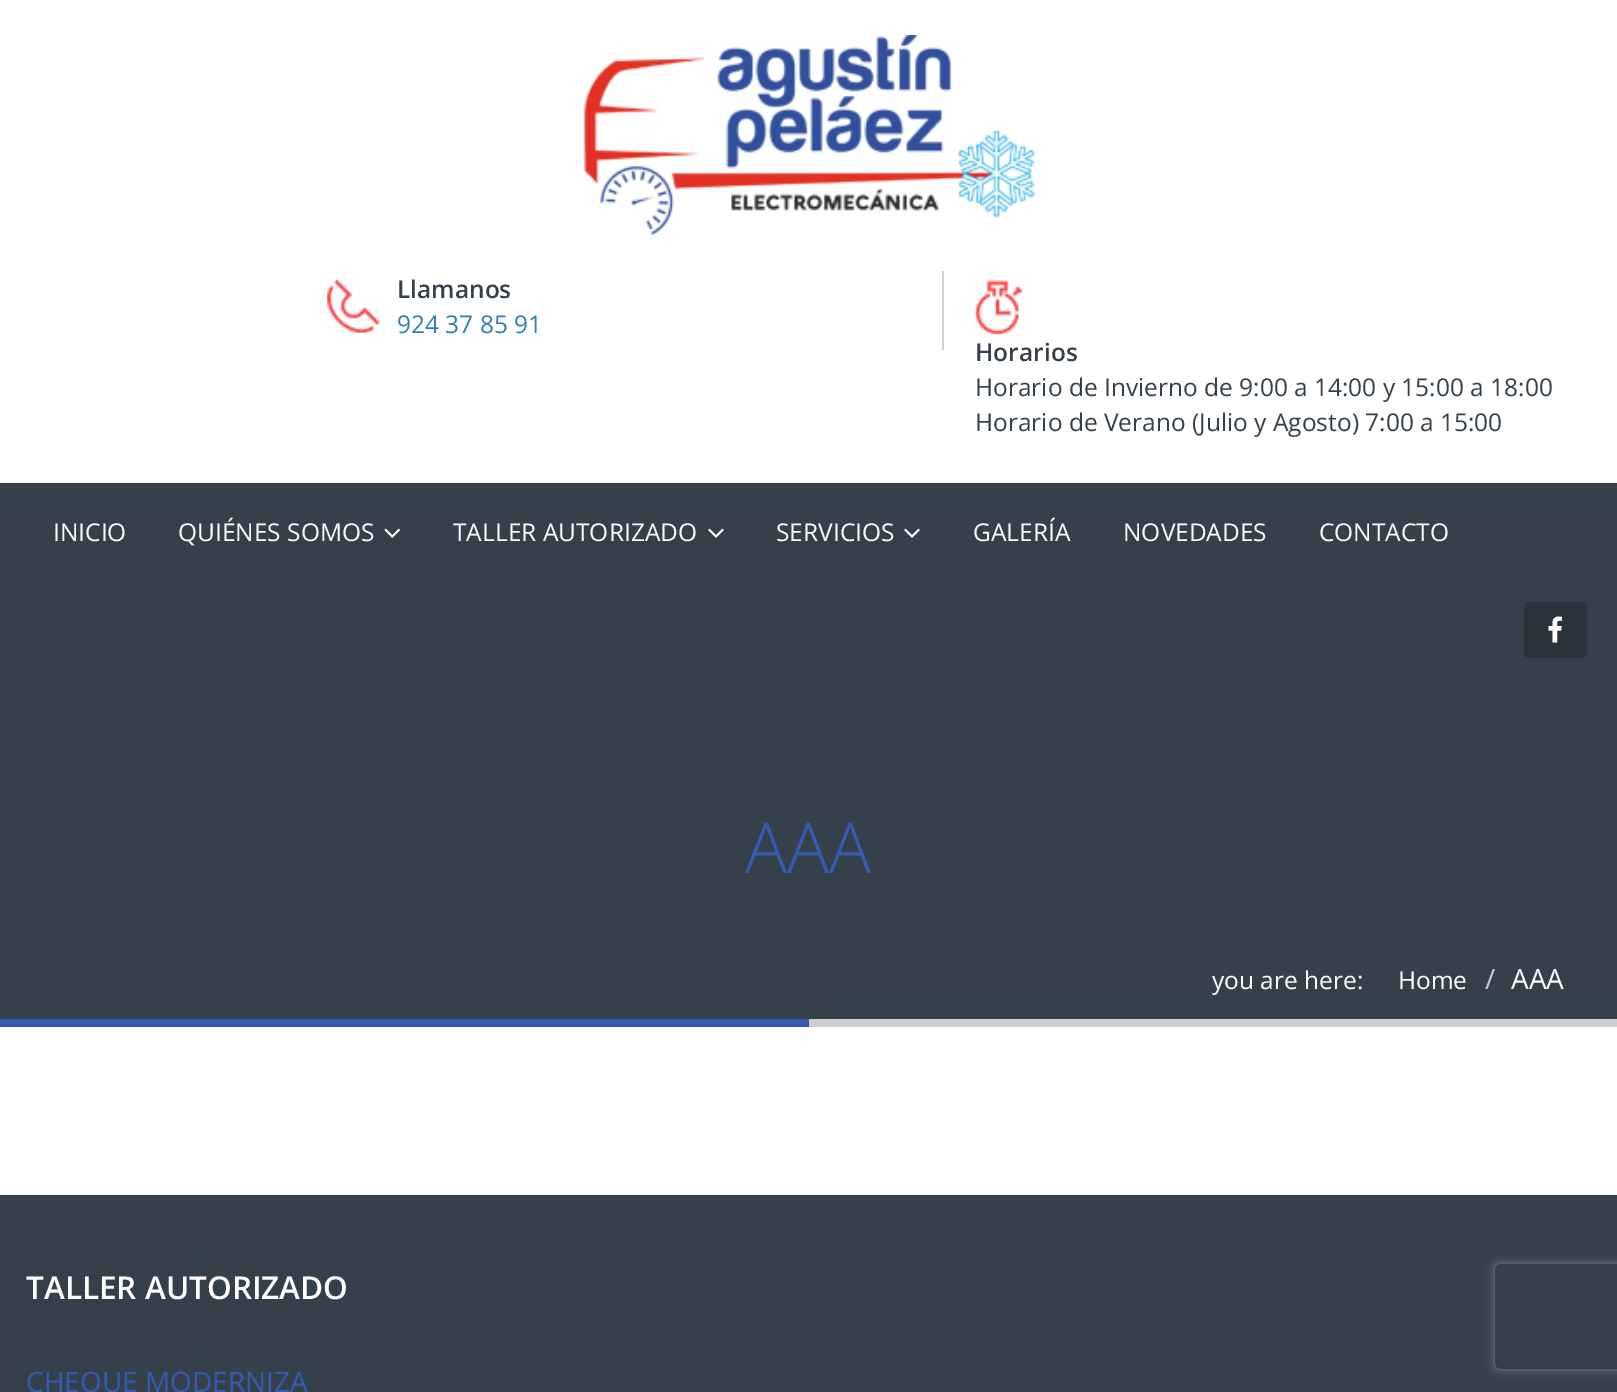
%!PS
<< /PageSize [1617 1392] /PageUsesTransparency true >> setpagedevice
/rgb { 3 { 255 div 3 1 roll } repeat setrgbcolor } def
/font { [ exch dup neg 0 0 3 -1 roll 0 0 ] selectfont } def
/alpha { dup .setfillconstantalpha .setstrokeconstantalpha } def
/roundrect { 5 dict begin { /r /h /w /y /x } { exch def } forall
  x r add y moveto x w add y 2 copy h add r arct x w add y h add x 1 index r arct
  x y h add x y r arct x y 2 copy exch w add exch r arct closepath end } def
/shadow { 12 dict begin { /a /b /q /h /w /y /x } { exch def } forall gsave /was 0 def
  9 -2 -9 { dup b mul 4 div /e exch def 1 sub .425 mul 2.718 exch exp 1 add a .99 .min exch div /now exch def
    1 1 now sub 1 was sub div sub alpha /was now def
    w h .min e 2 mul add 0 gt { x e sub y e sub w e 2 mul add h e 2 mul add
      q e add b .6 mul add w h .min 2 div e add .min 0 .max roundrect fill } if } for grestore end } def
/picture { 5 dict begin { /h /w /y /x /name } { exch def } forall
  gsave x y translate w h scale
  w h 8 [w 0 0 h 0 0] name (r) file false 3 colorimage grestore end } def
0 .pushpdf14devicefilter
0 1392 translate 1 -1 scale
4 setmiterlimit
255 255 255 rgb
0 0 1617 1392 rectfill
(img/1.rgb) 584 35 451 201 picture
211 211 211 rgb
942 271 2 79 rectfill
(img/2.rgb) 327 280 53 53 picture
(img/3.rgb) 974 280 48 55 picture
54 64 75 rgb
0 483 1617 536 rectfill
(img/4.rgb) 384 528 16 10 picture
(img/5.rgb) 708 528 16 10 picture
(img/5.rgb) 904 528 16 10 picture
42 50 58 rgb
1524 602 63 56 5 roundrect fill
(img/6.rgb) 1548 616 14 27 picture
[
  [0 1019 809 8 55 90 179]
  [809 1019 808 8 204 204 204]
  [0 1195 1617 197 54 64 75]
] { aload pop rgb rectfill } forall
gsave
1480 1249 moveto 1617 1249 lineto 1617 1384 lineto 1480 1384 lineto closepath 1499 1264 moveto 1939 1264 lineto 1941 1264 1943 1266 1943 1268 curveto 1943 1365 lineto 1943 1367 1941 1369 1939 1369 curveto 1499 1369 lineto 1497 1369 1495 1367 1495 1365 curveto 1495 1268 lineto 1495 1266 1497 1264 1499 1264 curveto closepath eoclip newpath
128 128 128 rgb
1495 1264 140 105 4 4.5 1 shadow
grestore
/OpenSans-SemiBold 24.5 font
397 298 moveto (Llamanos) show
/OpenSans-Regular 24.5 font
51 122 183 rgb
397 333 moveto (924 37 85 91) show
/OpenSans-SemiBold 24.5 font
54 64 75 rgb
975 361 moveto (Horarios) show
/OpenSans-Regular 24.5 font
975 396 moveto (Horario de Invierno de 9:00 a 14:00 y 15:00 a 18:00) show
975 431 moveto (Horario de Verano \(Julio y Agosto\) 7:00 a 15:00) show
255 255 255 rgb
[
  [(INICIO) 53 541]
  [(QUIÉNES SOMOS) 178 541]
  [(TALLER AUTORIZADO) 453 541]
  [(SERVICIOS) 776 541]
  [(GALERÍA) 973 541]
  [(NOVEDADES) 1123 541]
  [(CONTACTO) 1319 541]
] { aload pop moveto show } forall
/OpenSans-Light 70 font
55 90 179 rgb
745 873 moveto (AAA) show
/OpenSans-Regular 24.5 font
255 255 255 rgb
1212 989 moveto (you are here:) show
1398 989 moveto (Home) show
/OpenSans-Regular 28 font
204 204 204 rgb
1485 989 moveto (/) show
255 255 255 rgb
1511 989 moveto (AAA) show
/OpenSans-SemiBold 31.5 font
26 1299 moveto (TALLER AUTORIZADO) show
/OpenSans-Regular 28 font
55 90 179 rgb
26 1392 moveto (CHEQUE MODERNIZA) show
.poppdf14devicefilter showpage
